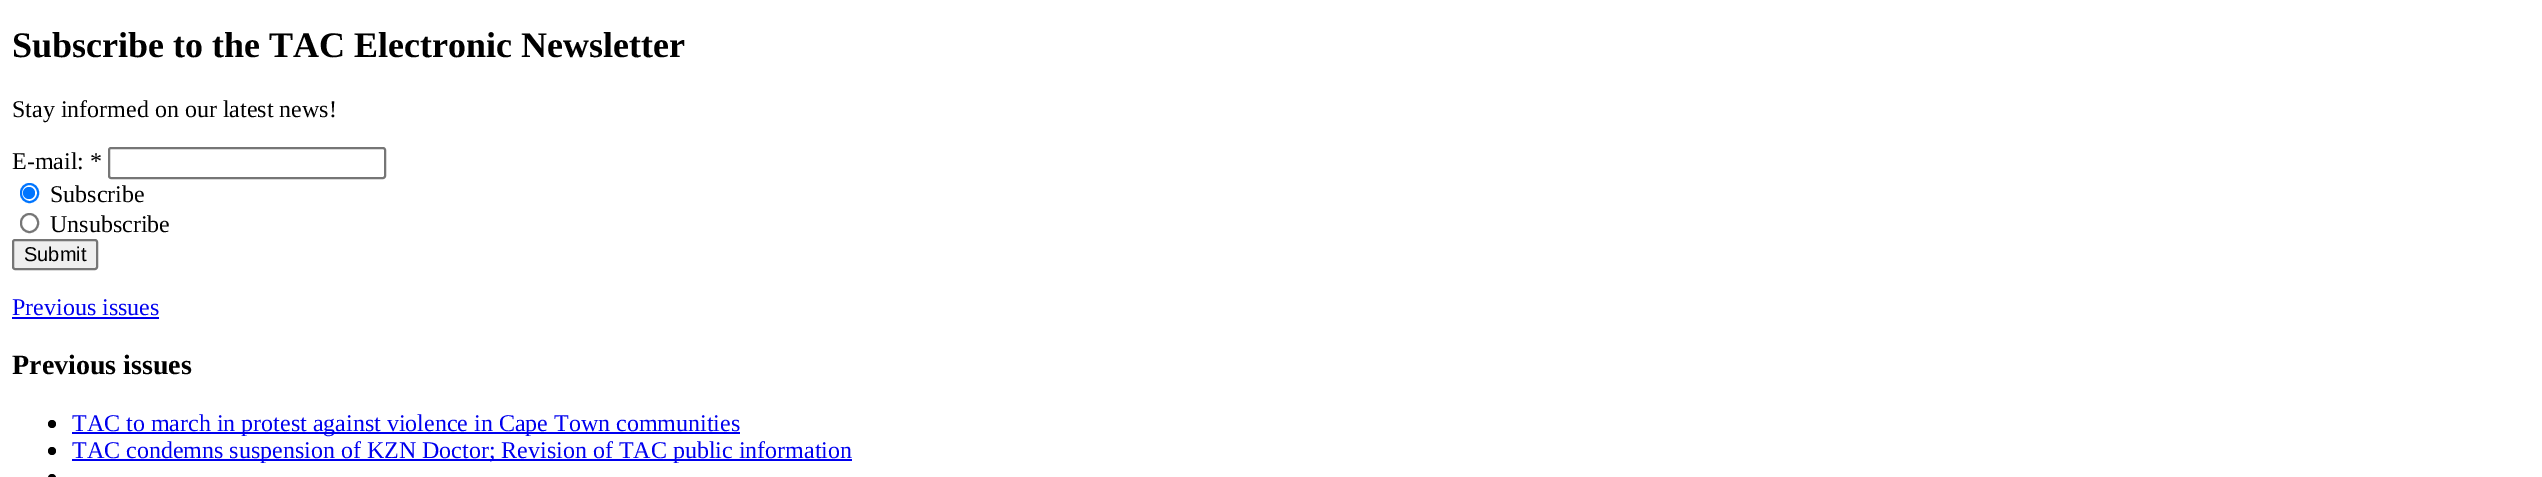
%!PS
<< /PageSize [2542 477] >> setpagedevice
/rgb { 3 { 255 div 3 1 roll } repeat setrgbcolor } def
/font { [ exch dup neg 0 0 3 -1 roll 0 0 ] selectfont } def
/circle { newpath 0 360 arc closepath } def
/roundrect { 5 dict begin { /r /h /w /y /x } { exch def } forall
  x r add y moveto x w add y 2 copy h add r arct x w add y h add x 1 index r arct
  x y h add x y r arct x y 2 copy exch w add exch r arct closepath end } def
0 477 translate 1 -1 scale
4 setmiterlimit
255 255 255 rgb
0 0 2542 477 rectfill
118 118 118 rgb
2 setlinewidth
109 148 276 30 2 roundrect stroke
0 117 255 rgb
21 184 17 18 8.5 roundrect stroke
29 193 6 circle fill
118 118 118 rgb
21 214 17 18 8.5 roundrect stroke
239 239 239 rgb
13 240 84 29 2 roundrect gsave fill grestore
118 118 118 rgb
stroke
0 0 238 rgb
12 317 147 2 rectfill
0 0 0 rgb
52 424 4 circle fill
0 0 238 rgb
72 432 668 2 rectfill
0 0 0 rgb
52 451 4 circle fill
0 0 238 rgb
72 459 780 2 rectfill
0 0 0 rgb
48 474 8 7 4 roundrect fill
/LiberationSerif-Bold 36 font
12 57 moveto (Subscribe to the TAC Electronic Newsletter) show
/LiberationSerif-Regular 24 font
[
  [(Stay informed on our latest news!) 12 117]
  [(E-mail: *) 12 169]
  [(Subscribe) 50 202]
  [(Unsubscribe) 50 232]
] { aload pop moveto show } forall
/LiberationSans-Regular 20 font
24 261 moveto (Submit) show
/LiberationSerif-Regular 24 font
0 0 238 rgb
12 315 moveto (Previous issues) show
/LiberationSerif-Bold 28 font
0 0 0 rgb
12 374 moveto (Previous issues) show
/LiberationSerif-Regular 24 font
0 0 238 rgb
72 431 moveto (TAC to march in protest against violence in Cape Town communities) show
72 458 moveto (TAC condemns suspension of KZN Doctor; Revision of TAC public information) show
showpage
